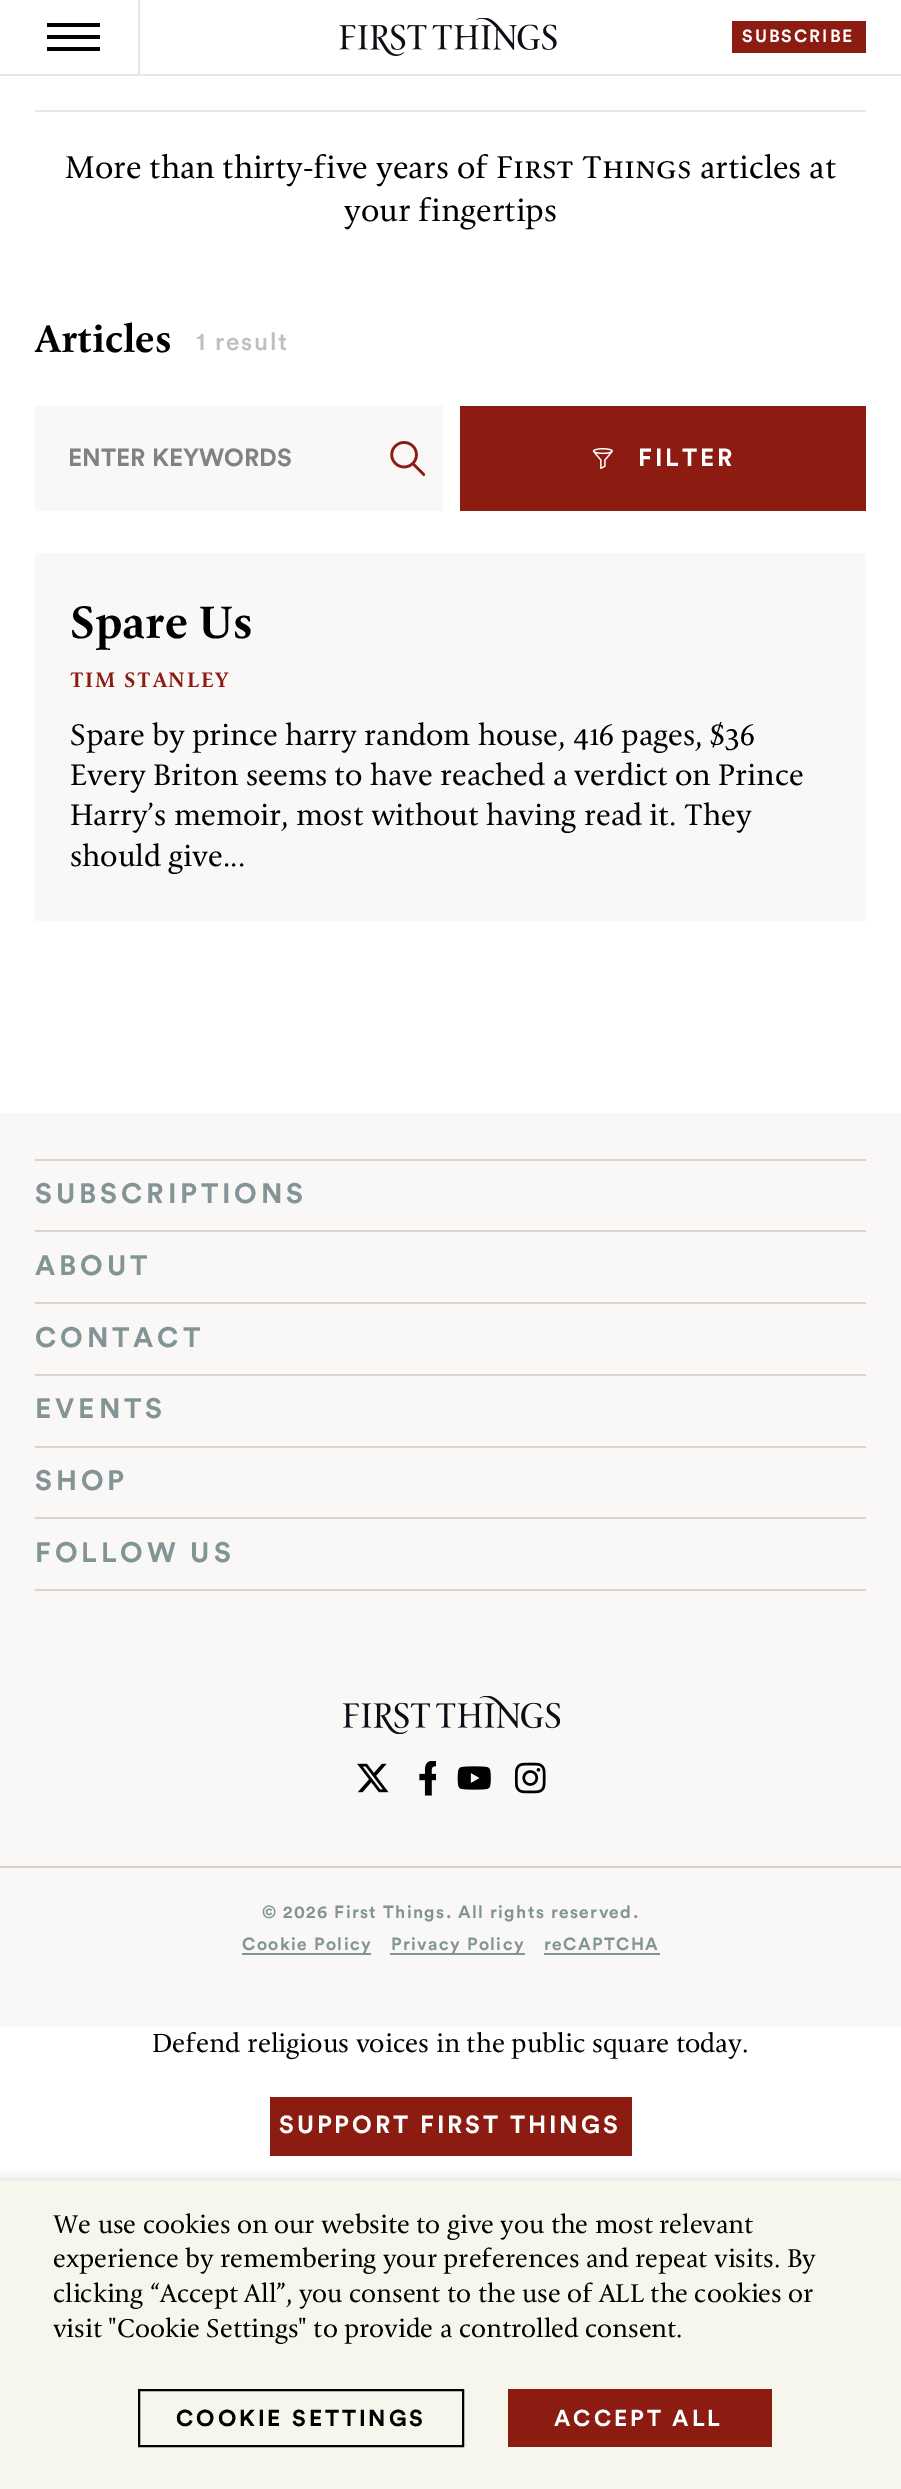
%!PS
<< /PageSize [901 2489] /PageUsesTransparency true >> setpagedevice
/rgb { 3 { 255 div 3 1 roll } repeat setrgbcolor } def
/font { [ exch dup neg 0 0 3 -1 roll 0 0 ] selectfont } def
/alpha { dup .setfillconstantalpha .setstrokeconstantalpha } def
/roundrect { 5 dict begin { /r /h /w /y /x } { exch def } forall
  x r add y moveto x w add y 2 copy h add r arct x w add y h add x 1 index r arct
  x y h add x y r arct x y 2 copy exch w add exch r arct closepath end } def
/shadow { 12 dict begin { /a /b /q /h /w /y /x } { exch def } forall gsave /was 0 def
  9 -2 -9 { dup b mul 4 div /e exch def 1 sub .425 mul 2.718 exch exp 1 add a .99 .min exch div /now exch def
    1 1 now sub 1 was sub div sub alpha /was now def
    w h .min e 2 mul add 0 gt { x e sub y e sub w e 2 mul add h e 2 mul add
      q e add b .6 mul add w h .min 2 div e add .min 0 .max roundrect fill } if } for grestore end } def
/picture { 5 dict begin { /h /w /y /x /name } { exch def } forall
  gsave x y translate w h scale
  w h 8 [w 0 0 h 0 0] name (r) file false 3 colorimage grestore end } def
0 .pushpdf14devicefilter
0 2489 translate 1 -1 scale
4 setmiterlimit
255 255 255 rgb
0 0 901 2489 rectfill
[
  [0 74 901 2 230 230 230]
  [138 0 2 74 230 230 230]
  [47 35 53 4 0 0 0]
  [47 23 53 4 0 0 0]
  [47 47 53 4 0 0 0]
] { aload pop rgb rectfill } forall
(img/1.rgb) 339 18 218 38 picture
[
  [732 21 134 32 140 27 17]
  [35 110 831 2 230 230 230]
  [35 406 408 105 250 247 247]
] { aload pop rgb rectfill } forall
(img/2.rgb) 390 441 35 35 picture
140 27 17 rgb
460 406 406 105 rectfill
(img/3.rgb) 592 448 21 21 picture
[
  [35 553 831 368 250 247 247]
  [0 1113 901 914 250 247 247]
  [35 1159 831 2 221 209 209]
  [35 1230 831 2 221 209 209]
  [35 1302 831 2 221 209 209]
  [35 1374 831 2 221 209 209]
  [35 1446 831 2 221 209 209]
  [35 1517 831 2 221 209 209]
  [35 1589 831 2 221 209 209]
  [0 1866 901 2 214 204 204]
] { aload pop rgb rectfill } forall
(img/4.rgb) 342 1696 218 38 picture
(img/5.rgb) 357 1763 32 30 picture
(img/6.rgb) 419 1761 17 35 picture
(img/7.rgb) 457 1766 34 24 picture
(img/8.rgb) 514 1762 32 32 picture
[
  [242 1953 129 2 130 148 150]
  [390 1953 135 2 130 148 150]
  [544 1953 116 2 130 148 150]
  [270 2097 362 59 140 27 17]
] { aload pop rgb rectfill } forall
0 0 0 rgb
0 2189 901 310 0 9 0.5 shadow
246 246 237 rgb
0 2181 901 308 rectfill
0 0 0 rgb
2 setlinewidth
139 2390 324 56 rectstroke
140 27 17 rgb
508 2389 264 58 rectfill
/Circular-Bold 17.5 font
255 255 255 rgb
742 42 moveto 2 0 (SUBSCRIBE) ashow
/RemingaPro-Regular 31.5 font
0 0 0 rgb
65 178 moveto (More than thirty-five years of) show
/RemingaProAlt-Regular 31.5 font
496 178 moveto (First Things) show
/RemingaPro-Regular 31.5 font
700 178 moveto (articles at) show
344 221 moveto (your fingertips) show
/RemingaPro-Medium 38.5 font
35 352 moveto (Articles) show
/Circular-Medium 24.5 font
191 191 191 rgb
196 350 moveto 1.75 0 (1 result) ashow
/Circular-Bold 24.5 font
130 128 128 rgb
68 466 moveto (ENTER KEYWORDS) show
255 255 255 rgb
638 466 moveto 2.9 0 (FILTER) ashow
/RemingaPro-Medium 45.5 font
0 0 0 rgb
70 638 moveto (Spare Us) show
/RemingaPro-Medium 21 font
140 27 17 rgb
70 687 moveto 1.75 0 (TIM STANLEY) ashow
/RemingaPro-Regular 29.75 font
0 0 0 rgb
[
  [(Spare by prince harry random house, 416 pages, $36) 70 745]
  [(Every Briton seems to have reached a verdict on Prince) 70 785]
  [(Harry’s memoir, most without having read it. They) 70 825]
  [(should give...) 70 866]
] { aload pop moveto show } forall
/Circular-Bold 28 font
130 148 150 rgb
35 1203 moveto 3.9 0 (SUBSCRIPTIONS) ashow
35 1275 moveto 3.9 0 (ABOUT) ashow
35 1347 moveto 3.9 0 (CONTACT) ashow
35 1418 moveto 3.9 0 (EVENTS) ashow
35 1490 moveto 3.9 0 (SHOP) ashow
35 1562 moveto 3.9 0 (FOLLOW US) ashow
/Circular-Bold 17.5 font
262 1918 moveto 1.35 0 (© 2026 First Things. All rights reserved.) ashow
242 1950 moveto 1.35 0 (Cookie Policy) ashow
391 1950 moveto 1.35 0 (Privacy Policy) ashow
544 1950 moveto 1.35 0 (reCAPTCHA) ashow
/RemingaPro-Regular 26.25 font
0 0 0 rgb
152 2052 moveto (Defend religious voices in the public square today.) show
/Circular-Bold 24.5 font
255 255 255 rgb
279 2133 moveto 2.9 0 (SUPPORT FIRST THINGS) ashow
/RemingaPro-Regular 25.7 font
0 0 0 rgb
[
  [(We use cookies on our website to give you the most relevant) 53 2233]
  [(experience by remembering your preferences and repeat visits. By) 53 2267]
  [(clicking “Accept All”, you consent to the use of ALL the cookies or) 53 2302]
  [(visit "Cookie Settings" to provide a controlled consent.) 53 2337]
] { aload pop moveto show } forall
/Circular-Bold 22.75 font
176 2426 moveto 2.9 0 (COOKIE SETTINGS) ashow
255 255 255 rgb
554 2426 moveto 2.9 0 (ACCEPT ALL) ashow
.poppdf14devicefilter showpage
